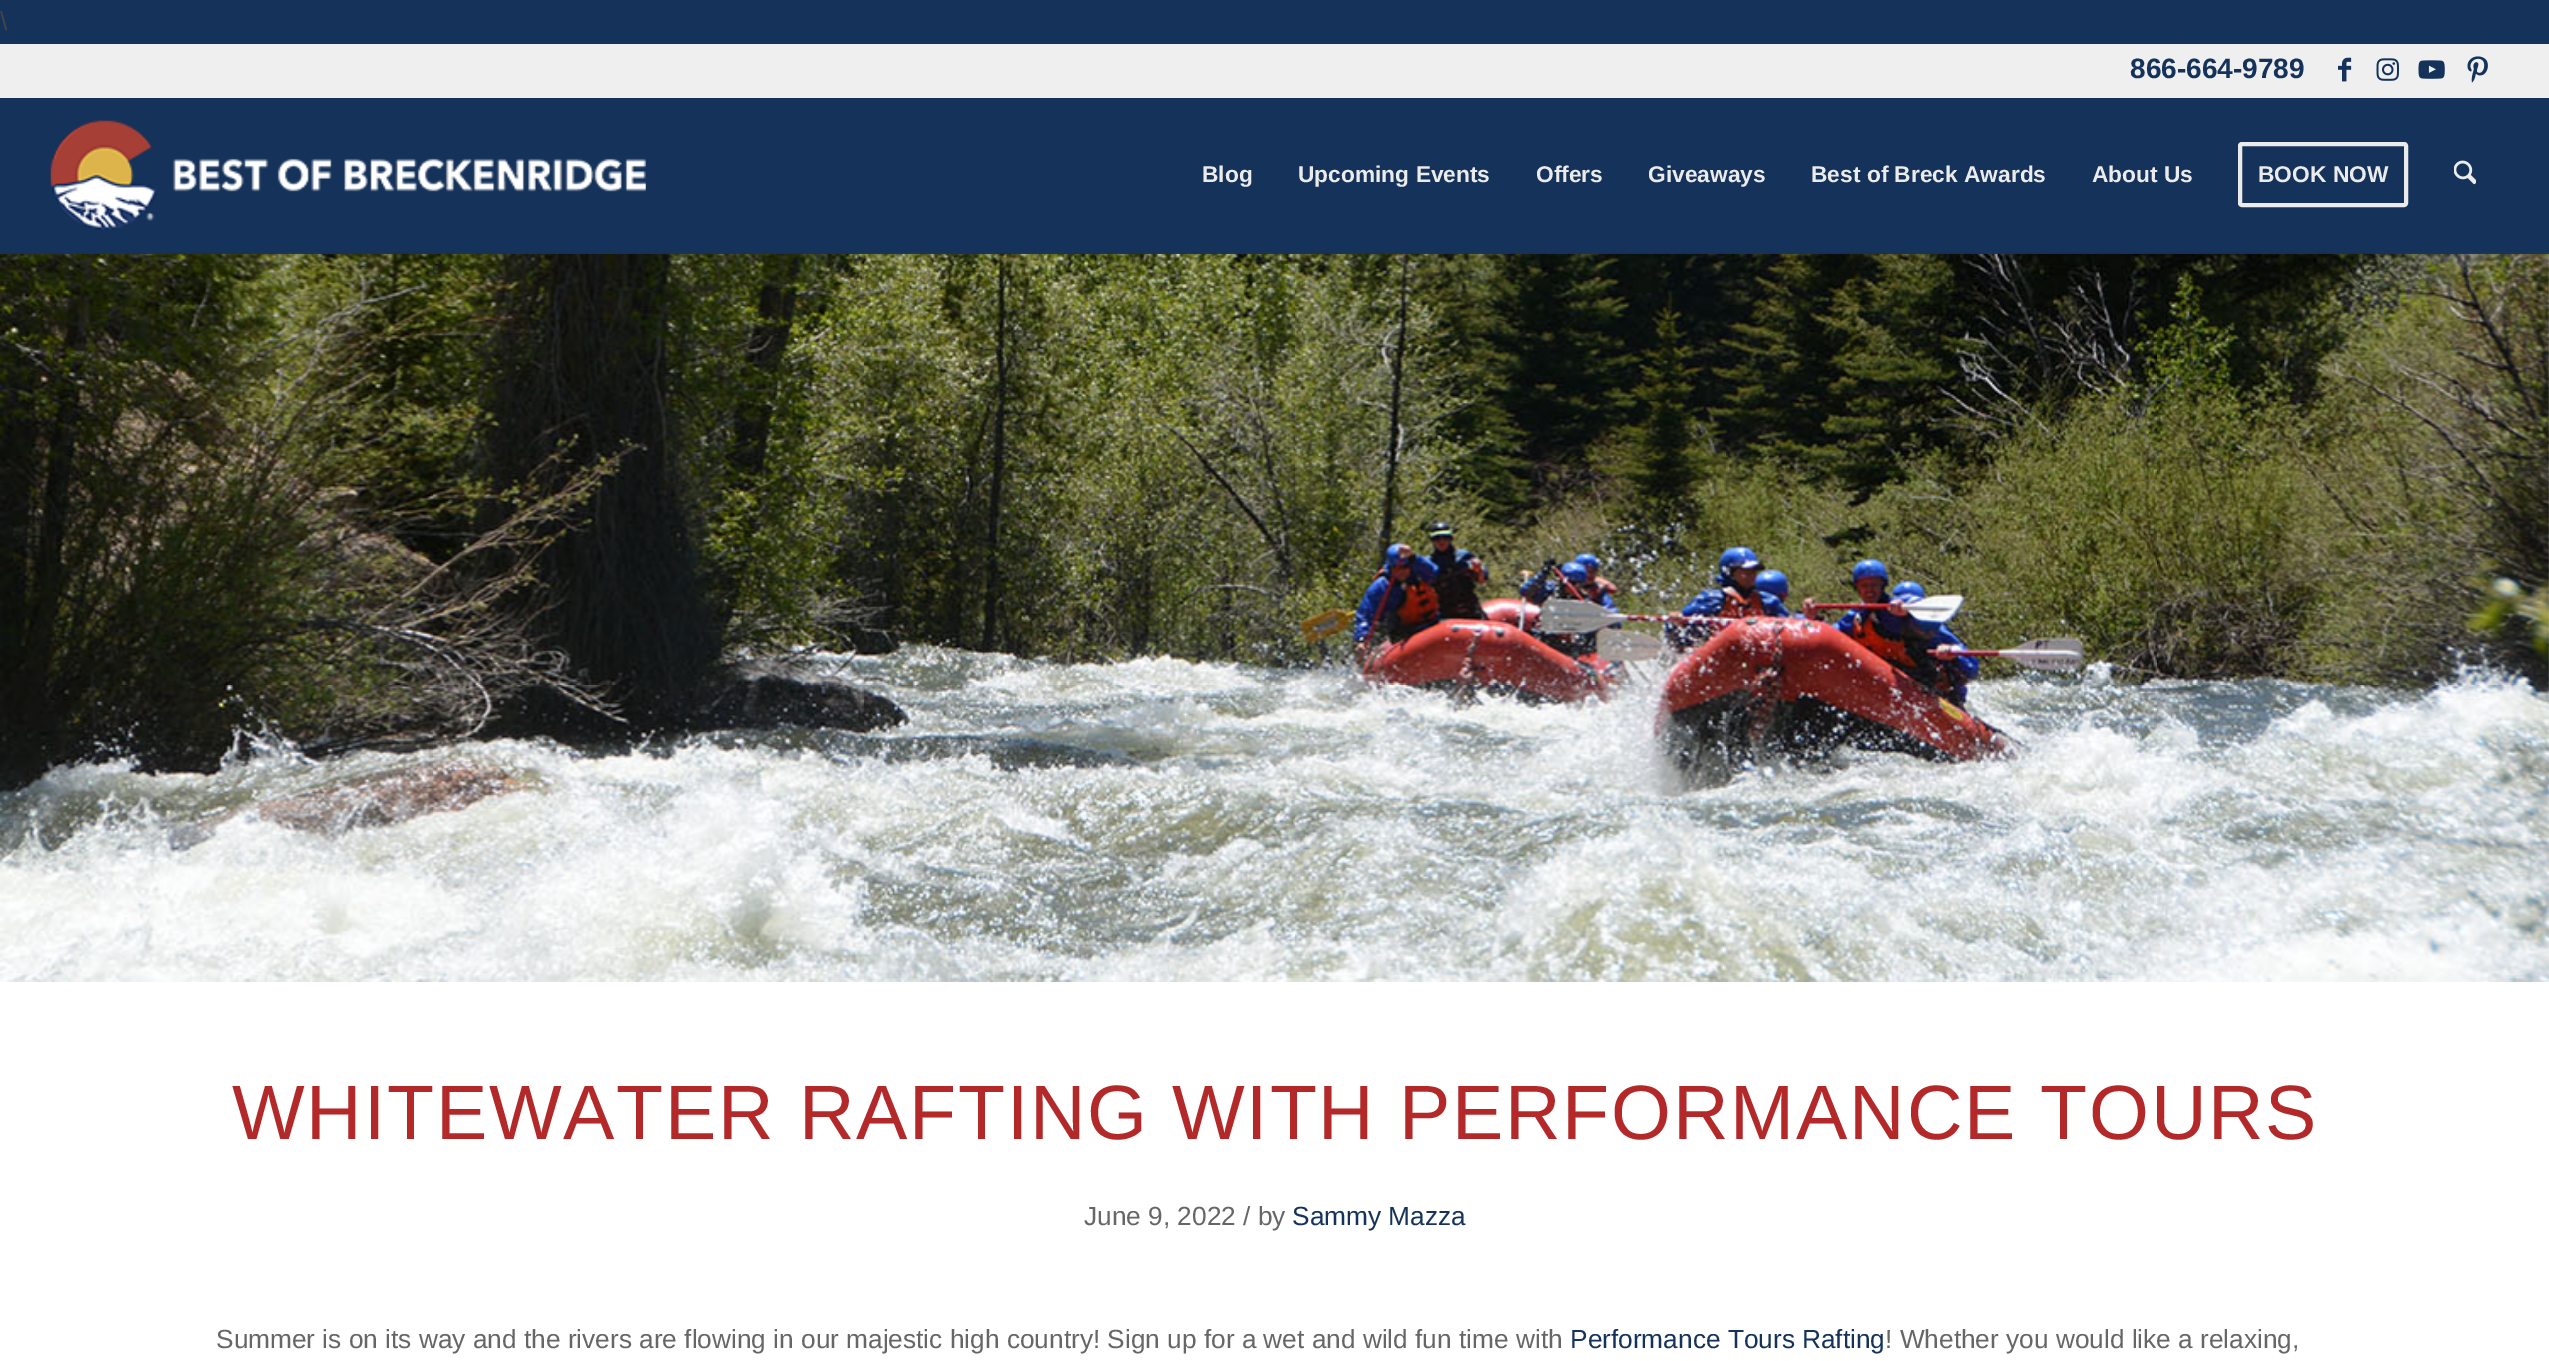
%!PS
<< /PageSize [2549 1361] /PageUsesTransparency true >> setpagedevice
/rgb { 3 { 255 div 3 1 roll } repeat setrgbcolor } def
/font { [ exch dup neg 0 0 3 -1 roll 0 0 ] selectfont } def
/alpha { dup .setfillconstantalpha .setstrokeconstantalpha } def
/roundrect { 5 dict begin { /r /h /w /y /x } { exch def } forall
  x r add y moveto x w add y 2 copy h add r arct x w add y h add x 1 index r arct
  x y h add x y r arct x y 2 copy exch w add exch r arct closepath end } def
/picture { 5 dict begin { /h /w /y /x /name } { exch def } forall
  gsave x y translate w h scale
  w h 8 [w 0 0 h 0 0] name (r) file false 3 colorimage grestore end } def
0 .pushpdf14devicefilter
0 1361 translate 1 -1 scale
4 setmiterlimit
20 50 90 rgb
0 0 2549 1361 rectfill
239 239 239 rgb
0 44 2549 54 rectfill
(img/1.rgb) 2338 57 14 25 picture
(img/2.rgb) 2376 58 23 23 picture
(img/3.rgb) 2418 60 27 19 picture
(img/4.rgb) 2467 56 21 27 picture
(img/5.rgb) 50 120 596 110 picture
235 235 235 rgb
4 setlinewidth
2240 144 166 61 2 roundrect stroke
(img/6.rgb) 2454 160 22 25 picture
(img/7.rgb) 0 252 2549 730 picture
0.95 alpha
20 50 90 rgb
0 252 2549 2 rectfill
1 alpha
255 255 255 rgb
0 982 2549 379 rectfill
/LiberationSans-Regular 26.25 font
68 68 68 rgb
0 30 moveto (\\) show
/LiberationSans-Bold 28 font
20 50 90 rgb
2130 78 moveto (866-664-9789) show
/LiberationSans-Bold 22.75 font
235 235 235 rgb
[
  [(Blog) 1202 182]
  [(Upcoming Events) 1298 182]
  [(Offers) 1536 182]
  [(Giveaways) 1648 182]
  [(Best of Breck Awards) 1811 182]
  [(About Us) 2092 182]
  [(BOOK NOW) 2258 182]
] { aload pop moveto show } forall
/LiberationSans-Regular 77 font
179 40 40 rgb
232 1139 moveto 1.75 0 (WHITEWATER RAFTING WITH PERFORMANCE TOURS) ashow
/LiberationSans-Regular 26.25 font
102 102 102 rgb
1084 1225 moveto (June 9, 2022 / by) show
20 50 90 rgb
1292 1225 moveto (Sammy Mazza) show
102 102 102 rgb
216 1348 moveto (Summer is on its way and the rivers are flowing in our majestic high country! Sign up for a wet and wild fun time with) show
20 50 90 rgb
1570 1348 moveto (Performance Tours Rafting) show
102 102 102 rgb
1885 1348 moveto (! Whether you would like a relaxing,) show
.poppdf14devicefilter showpage
